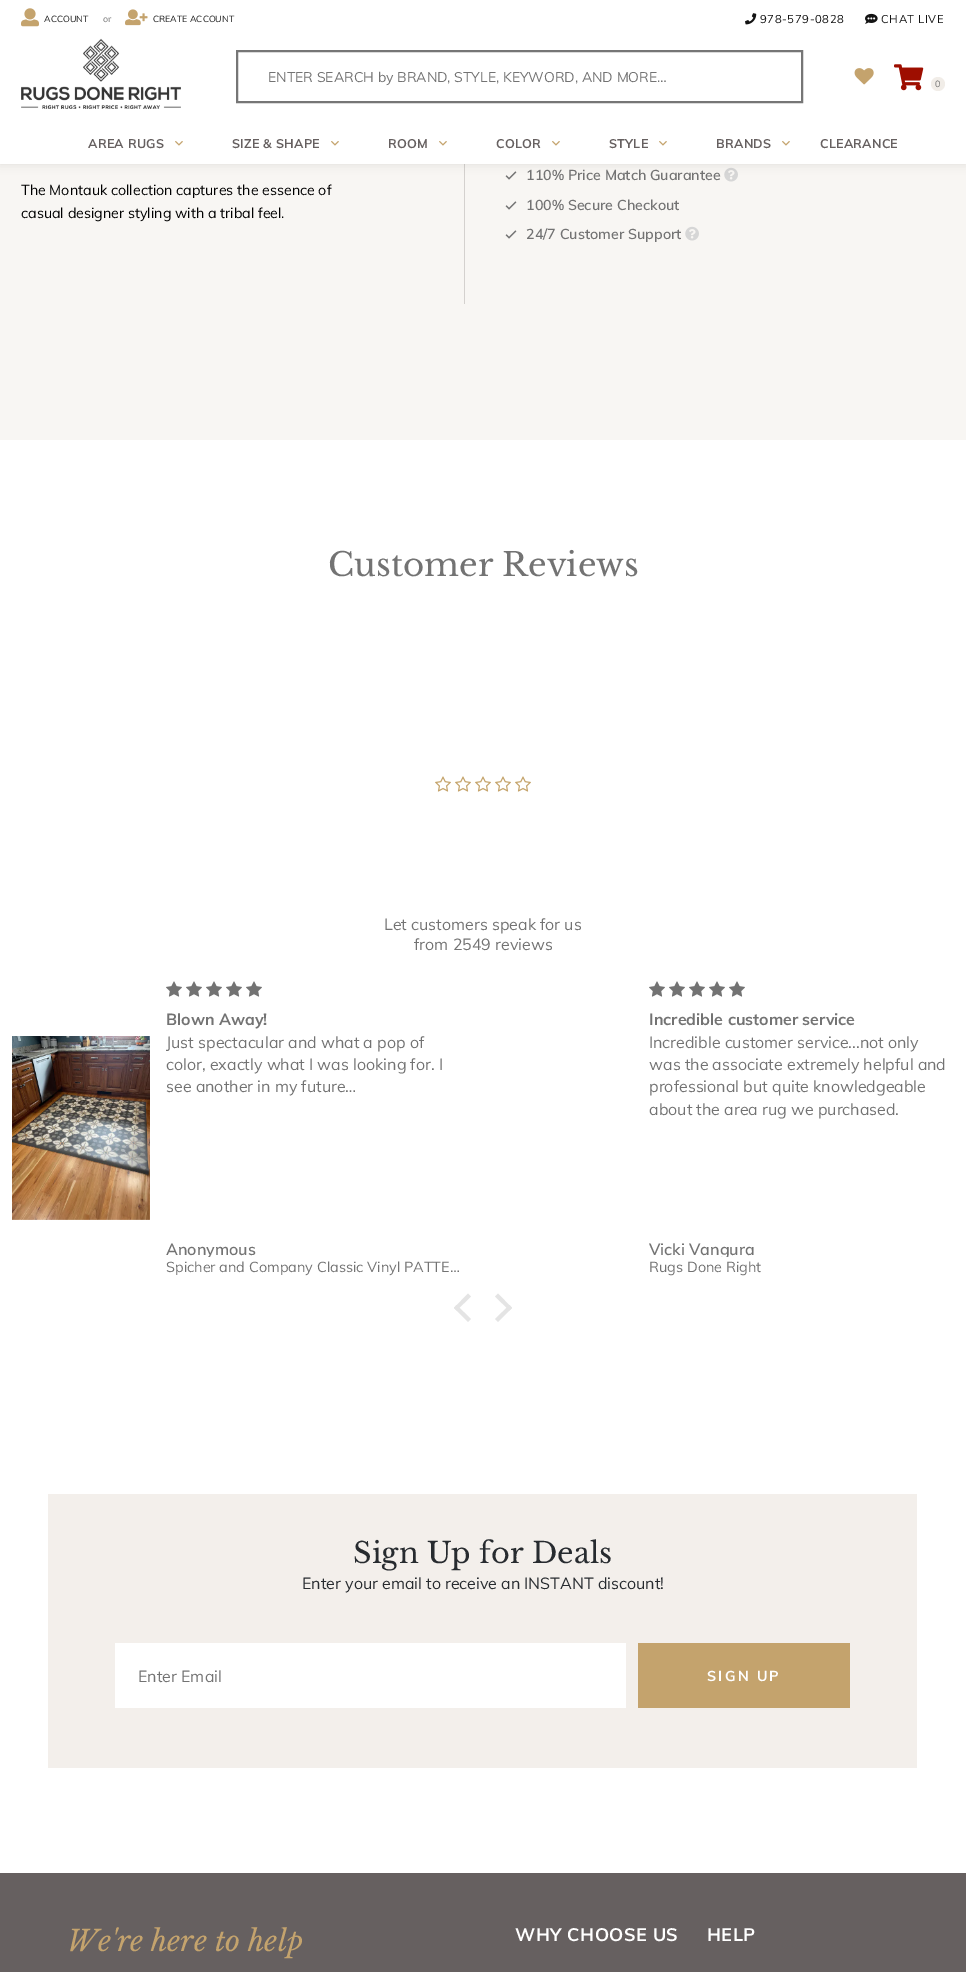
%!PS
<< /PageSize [966 1972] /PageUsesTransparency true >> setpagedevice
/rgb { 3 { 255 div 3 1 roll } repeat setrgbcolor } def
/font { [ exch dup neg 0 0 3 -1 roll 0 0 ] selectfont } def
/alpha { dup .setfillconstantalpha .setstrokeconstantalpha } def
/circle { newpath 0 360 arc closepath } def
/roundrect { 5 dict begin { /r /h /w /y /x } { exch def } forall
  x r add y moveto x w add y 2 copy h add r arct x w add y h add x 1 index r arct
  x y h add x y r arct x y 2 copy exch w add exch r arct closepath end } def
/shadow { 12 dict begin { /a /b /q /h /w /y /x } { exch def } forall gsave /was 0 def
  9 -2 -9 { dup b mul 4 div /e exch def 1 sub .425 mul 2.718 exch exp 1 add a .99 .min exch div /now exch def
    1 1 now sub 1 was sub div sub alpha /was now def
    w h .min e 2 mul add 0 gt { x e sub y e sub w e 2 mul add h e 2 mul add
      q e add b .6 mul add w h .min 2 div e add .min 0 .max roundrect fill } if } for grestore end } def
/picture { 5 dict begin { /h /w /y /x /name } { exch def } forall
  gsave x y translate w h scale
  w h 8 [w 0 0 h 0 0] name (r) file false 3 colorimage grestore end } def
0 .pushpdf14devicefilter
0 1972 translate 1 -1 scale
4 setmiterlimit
255 255 255 rgb
0 0 966 1972 rectfill
248 246 243 rgb
0 164 966 276 rectfill
212 209 206 rgb
464 164 1 140 rectfill
(img/9.rgb) 505 171 12 9 picture
(img/10.rgb) 724 167 14 15 picture
0 0 0 rgb
0 0 966 164 0 5 0.1 shadow
255 255 255 rgb
0 0 966 164 rectfill
(img/1.rgb) 21 8 18 19 picture
(img/2.rgb) 125 9 23 17 picture
(img/3.rgb) 745 13 12 12 picture
(img/4.rgb) 865 13 13 11 picture
(img/5.rgb) 21 38 160 71 picture
118 118 118 rgb
2 setlinewidth
237 51 565 51 rectstroke
(img/6.rgb) 854 68 20 17 picture
(img/7.rgb) 894 64 30 27 picture
241 237 232 rgb
938 84 7 circle fill
(img/8.rgb) 175 141 8 5 picture
(img/8.rgb) 331 141 8 5 picture
(img/8.rgb) 439 141 8 5 picture
(img/8.rgb) 552 141 8 5 picture
(img/8.rgb) 659 141 8 5 picture
(img/8.rgb) 782 141 8 5 picture
(img/9.rgb) 505 201 12 9 picture
(img/9.rgb) 505 230 12 9 picture
(img/10.rgb) 685 226 14 15 picture
(img/11.rgb) 435 776 16 16 picture
(img/11.rgb) 455 776 16 16 picture
(img/11.rgb) 475 776 16 16 picture
(img/11.rgb) 495 776 16 16 picture
(img/11.rgb) 515 776 16 16 picture
(img/12.rgb) 12 1036 138 184 picture
(img/13.rgb) 166 981 16 16 picture
(img/13.rgb) 186 981 16 16 picture
(img/13.rgb) 206 981 16 16 picture
(img/13.rgb) 226 981 16 16 picture
(img/13.rgb) 246 981 16 16 picture
(img/13.rgb) 649 981 16 16 picture
(img/13.rgb) 669 981 16 16 picture
(img/13.rgb) 689 981 16 16 picture
(img/13.rgb) 709 981 16 16 picture
(img/13.rgb) 729 981 16 16 picture
228 228 228 rgb
454 1308 moveto 468 1293.5 lineto 471 1296.5 lineto 456.5 1310.5 lineto closepath fill
454 1308 moveto 456.5 1305 lineto 471 1319 lineto 468 1322 lineto closepath 495 1296.5 moveto 498 1293.5 lineto 512 1308 lineto 509.5 1310.5 lineto closepath fill
495 1319 moveto 509.5 1305 lineto 512 1308 lineto 498 1322 lineto closepath fill
[
  [48 1494 869 274 243 239 235]
  [115 1643 511 65 255 255 255]
  [638 1643 212 65 196 163 109]
  [0 1873 966 99 102 96 96]
] { aload pop rgb rectfill } forall
/Muli-Regular 8.9 font
19 19 19 rgb
44 22 moveto (ACCOUNT) show
115 115 115 rgb
103 22 moveto (or) show
19 19 19 rgb
153 22 moveto (CREATE ACCOUNT) show
/Muli-Regular 11.25 font
760 23 moveto 0.6 0 (978-579-0828) ashow
881 23 moveto 0.6 0 (CHAT LIVE) ashow
/Muli-Regular 14 font
115 115 115 rgb
268 82 moveto (ENTER SEARCH by BRAND, STYLE, KEYWORD, AND MORE…) show
/Muli-Regular 9 font
935 87 moveto (0) show
/Muli-Bold 12.5 font
102 96 96 rgb
88 148 moveto 0.25 0 (AREA RUGS) ashow
232 148 moveto 0.25 0 (SIZE & SHAPE) ashow
388 148 moveto 0.25 0 (ROOM) ashow
496 148 moveto 0.25 0 (COLOR) ashow
609 148 moveto 0.25 0 (STYLE) ashow
716 148 moveto 0.25 0 (BRANDS) ashow
820 148 moveto 0.25 0 (CLEARANCE) ashow
/Muli-Regular 14.25 font
0 0 0 rgb
21 195 moveto (The Montauk collection captures the essence of) show
21 218 moveto (casual designer styling with a tribal feel.) show
/Muli-SemiBold 14.25 font
115 115 115 rgb
[
  [(110% Price Match Guarantee) 526 180]
  [(100% Secure Checkout) 526 210]
  [(24/7 Customer Support) 526 239]
] { aload pop moveto show } forall
/LibreBaskerville-Regular 32.5 font
328 576 moveto (Customer Reviews) show
/Muli-Regular 16 font
384 930 moveto (Let customers speak for us) show
414 950 moveto (from 2549 reviews) show
/Muli-Bold 16 font
166 1025 moveto (Blown Away!) show
/Muli-Regular 16 font
[
  [(Just spectacular and what a pop of) 166 1048]
  [(color, exactly what I was looking for. I) 166 1070]
  [(see another in my future…) 166 1092]
] { aload pop moveto show } forall
gsave
166 1241 297 16 rectclip
/Muli-SemiBold 16 font
166 1255 moveto (Anonymous) show
grestore
/Muli-Regular 14.4 font
166 1272 moveto (Spicher and Company Classic Vinyl PATTE…) show
/Muli-Bold 16 font
649 1025 moveto (Incredible customer service) show
/Muli-Regular 16 font
[
  [(Incredible customer service...not only) 649 1048]
  [(was the associate extremely helpful and) 649 1070]
  [(professional but quite knowledgeable) 649 1092]
  [(about the area rug we purchased.) 649 1115]
] { aload pop moveto show } forall
gsave
649 1241 297 16 rectclip
/Muli-SemiBold 16 font
649 1255 moveto (Vicki Vangura) show
grestore
/Muli-Regular 14.4 font
649 1272 moveto (Rugs Done Right) show
/LibreBaskerville-Regular 28.75 font
39 43 47 rgb
353 1563 moveto (Sign Up for Deals) show
/Muli-Regular 16 font
302 1589 moveto (Enter your email to receive an INSTANT discount!) show
115 115 115 rgb
138 1682 moveto (Enter Email) show
/Muli-Bold 14.25 font
255 255 255 rgb
707 1681 moveto 2.25 0 (SIGN UP) ashow
/LibreBaskerville-Italic 28.75 font
196 163 109 rgb
67 1951 moveto (We're here to help) show
/Muli-Bold 18 font
255 255 255 rgb
515 1941 moveto 0.5 0 (WHY CHOOSE US) ashow
707 1941 moveto 0.5 0 (HELP) ashow
.poppdf14devicefilter showpage
